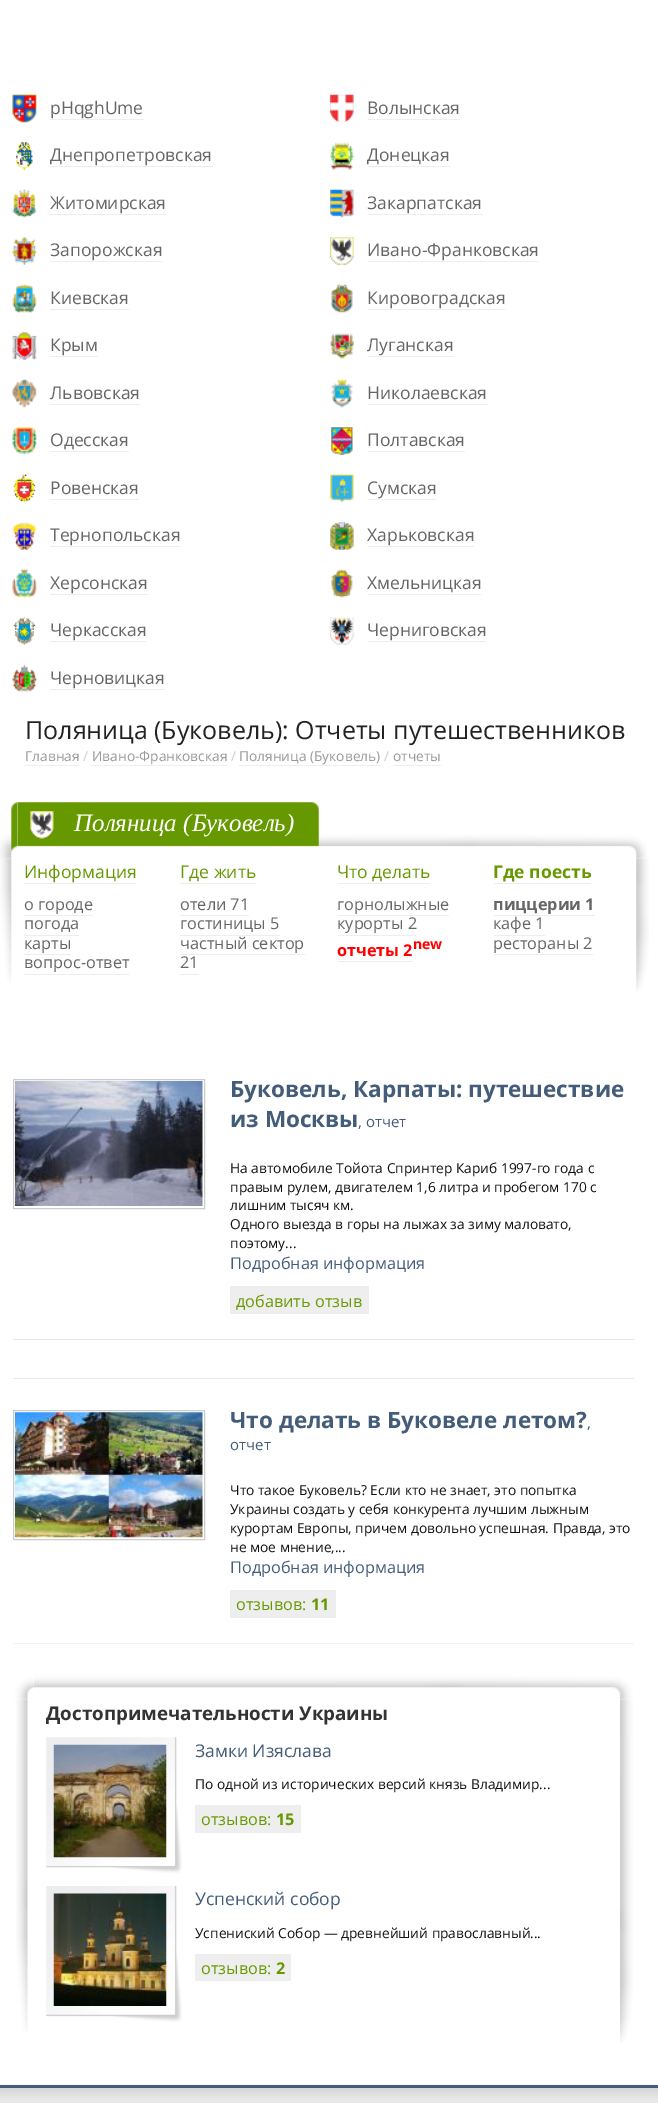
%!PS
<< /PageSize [658 2103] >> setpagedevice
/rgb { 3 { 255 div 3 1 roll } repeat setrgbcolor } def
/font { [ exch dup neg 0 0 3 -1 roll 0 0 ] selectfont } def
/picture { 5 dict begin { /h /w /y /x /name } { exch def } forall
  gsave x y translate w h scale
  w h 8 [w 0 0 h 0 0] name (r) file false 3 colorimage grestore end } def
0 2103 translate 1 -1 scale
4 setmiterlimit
255 255 255 rgb
0 0 658 2103 rectfill
(img/1.rgb) 12 94 25 29 picture
238 238 238 rgb
50 119 94 1 rectfill
(img/2.rgb) 330 94 24 29 picture
368 119 92 1 rectfill
(img/3.rgb) 16 142 17 28 picture
50 166 163 1 rectfill
(img/4.rgb) 330 142 24 28 picture
368 166 82 1 rectfill
(img/5.rgb) 12 189 25 29 picture
50 214 116 1 rectfill
(img/6.rgb) 330 189 24 29 picture
368 214 115 1 rectfill
(img/7.rgb) 12 237 25 28 picture
50 261 113 1 rectfill
(img/8.rgb) 330 237 24 28 picture
368 261 171 1 rectfill
(img/9.rgb) 12 284 25 29 picture
50 309 79 1 rectfill
(img/10.rgb) 331 284 22 29 picture
368 309 137 1 rectfill
(img/11.rgb) 12 332 25 28 picture
50 356 48 1 rectfill
(img/12.rgb) 330 333 24 26 picture
368 356 86 1 rectfill
(img/13.rgb) 12 379 25 29 picture
50 404 90 1 rectfill
(img/14.rgb) 331 379 22 29 picture
368 404 120 1 rectfill
(img/15.rgb) 12 427 25 28 picture
50 451 79 1 rectfill
(img/16.rgb) 331 427 22 28 picture
368 451 97 1 rectfill
(img/17.rgb) 13 474 23 29 picture
50 499 89 1 rectfill
(img/18.rgb) 330 474 24 29 picture
368 499 68 1 rectfill
(img/19.rgb) 12 522 25 28 picture
50 546 130 1 rectfill
(img/20.rgb) 330 522 24 28 picture
368 546 106 1 rectfill
(img/21.rgb) 12 569 25 29 picture
50 594 98 1 rectfill
(img/22.rgb) 331 569 22 29 picture
368 594 113 1 rectfill
(img/23.rgb) 13 617 23 28 picture
50 641 96 1 rectfill
(img/24.rgb) 330 617 24 28 picture
368 641 118 1 rectfill
(img/25.rgb) 12 664 25 29 picture
[
  [50 689 115 1 238 238 238]
  [25 765 55 1 238 238 238]
  [91 765 137 1 238 238 238]
  [239 765 142 1 238 238 238]
  [393 765 48 1 238 238 238]
] { aload pop rgb rectfill } forall
(img/26.rgb) 0 802 18 57 picture
(img/27.rgb) 17 802 630 57 picture
(img/28.rgb) 17 802 302 45 picture
(img/29.rgb) 30 811 24 28 picture
(img/30.rgb) 0 858 12 125 picture
(img/31.rgb) 636 858 13 135 picture
[
  [24 883 112 1 238 238 238]
  [24 915 69 1 238 238 238]
  [24 935 55 1 238 238 238]
  [24 954 47 1 238 238 238]
  [24 974 105 1 238 238 238]
  [180 883 76 1 238 238 238]
  [180 915 69 1 238 238 238]
  [180 935 100 1 238 238 238]
  [180 954 125 1 238 238 238]
  [180 974 19 1 238 238 238]
  [338 883 92 1 238 238 238]
  [338 915 111 1 238 238 238]
  [338 935 78 1 238 238 238]
  [338 961 75 1 238 238 238]
  [494 883 97 1 238 238 238]
  [494 915 101 1 238 238 238]
  [494 935 51 1 238 238 238]
  [494 954 99 1 238 238 238]
  [13 1339 621 1 230 230 230]
] { aload pop rgb rectfill } forall
204 204 204 rgb
13.5 1079.5 191 129 rectstroke
(img/32.rgb) 15 1081 188 125 picture
[
  [230 1286 139 28 238 238 238]
  [13 1378 621 1 230 230 230]
  [13 1643 621 1 230 230 230]
] { aload pop rgb rectfill } forall
204 204 204 rgb
13.5 1410.5 191 129 rectstroke
(img/33.rgb) 15 1412 188 126 picture
238 238 238 rgb
230 1590 106 28 rectfill
(img/34.rgb) 13 1643 21 57 picture
(img/35.rgb) 34 1643 600 57 picture
(img/36.rgb) 16 1700 12 333 picture
(img/37.rgb) 620 1700 13 343 picture
(img/38.rgb) 46 1737 136 136 picture
(img/39.rgb) 53 1744 114 114 picture
195 1805 106 28 rectfill
(img/40.rgb) 46 1886 136 136 picture
(img/41.rgb) 53 1893 114 113 picture
195 1954 96 27 rectfill
(img/42.rgb) 0 2084 658 19 picture
67 92 121 rgb
0 2085 658 3 rectfill
/OpenSans-Regular 17.5 font
102 102 102 rgb
[
  [(pHqghUme) 50 114]
  [(Волынская) 367 114]
  [(Днепропетровская) 50 161]
  [(Донецкая) 367 161]
  [(Житомирская) 50 209]
  [(Закарпатская) 367 209]
  [(Запорожская) 50 256]
  [(Ивано-Франковская) 367 256]
  [(Киевская) 50 304]
  [(Кировоградская) 367 304]
  [(Крым) 50 351]
  [(Луганская) 367 351]
  [(Львовская) 50 399]
  [(Николаевская) 367 399]
  [(Одесская) 50 446]
  [(Полтавская) 367 446]
  [(Ровенская) 50 494]
  [(Сумская) 367 494]
  [(Тернопольская) 50 541]
  [(Харьковская) 367 541]
  [(Херсонская) 50 589]
  [(Хмельницкая) 367 589]
  [(Черкасская) 50 636]
  [(Черниговская) 367 636]
  [(Черновицкая) 50 684]
] { aload pop moveto show } forall
/OpenSans-Regular 25 font
34 34 34 rgb
25 739 moveto (Поляница \(Буковель\): Отчеты путешественников) show
/OpenSans-Regular 13.75 font
153 153 153 rgb
25 761 moveto (Главная) show
204 204 204 rgb
83 761 moveto (/) show
153 153 153 rgb
92 761 moveto (Ивано-Франковская) show
204 204 204 rgb
231 761 moveto (/) show
153 153 153 rgb
239 761 moveto (Поляница \(Буковель\)) show
204 204 204 rgb
384 761 moveto (/) show
153 153 153 rgb
393 761 moveto (отчеты) show
/LiberationSerif-Italic 25 font
255 255 255 rgb
74 831 moveto (Поляница \(Буковель\)) show
/OpenSans-Regular 17.5 font
102 153 0 rgb
24 878 moveto (Информация) show
/OpenSans-Regular 16.25 font
102 102 102 rgb
[
  [(о городе) 24 910]
  [(погода) 24 929]
  [(карты) 24 949]
  [(вопрос-ответ) 24 968]
] { aload pop moveto show } forall
/OpenSans-Regular 17.5 font
102 153 0 rgb
180 878 moveto (Где жить) show
/OpenSans-Regular 16.25 font
102 102 102 rgb
[
  [(отели 71) 180 910]
  [(гостиницы 5) 180 929]
  [(частный сектор) 180 949]
  [(21) 180 968]
] { aload pop moveto show } forall
/OpenSans-Regular 17.5 font
102 153 0 rgb
337 878 moveto (Что делать) show
/OpenSans-Regular 16.25 font
102 102 102 rgb
337 910 moveto (горнолыжные) show
337 929 moveto (курорты 2) show
/OpenSans-Bold 16.25 font
255 0 0 rgb
337 956 moveto (отчеты 2) show
/OpenSans-Bold 14 font
413 949 moveto (new) show
/OpenSans-Bold 17.5 font
102 153 0 rgb
493 878 moveto (Где поесть) show
/OpenSans-Bold 16.25 font
102 102 102 rgb
493 910 moveto (пиццерии 1) show
/OpenSans-Regular 16.25 font
493 929 moveto (кафе 1) show
493 949 moveto (рестораны 2) show
/OpenSans-Bold 22.5 font
67 92 121 rgb
230 1097 moveto (Буковель, Карпаты: путешествие) show
230 1127 moveto (из Москвы) show
/OpenSans-Regular 15 font
358 1127 moveto (, отчет) show
/OpenSans-Regular 13.75 font
17 17 17 rgb
[
  [(На автомобиле Тойота Спринтер Кариб 1997-го года с) 230 1173]
  [(правым рулем, двигателем 1,6 литра и пробегом 170 с) 230 1192]
  [(лишним тысяч км.) 230 1210]
  [(Одного выезда в горы на лыжах за зиму маловато,) 230 1229]
  [(поэтому...) 230 1248]
] { aload pop moveto show } forall
/OpenSans-Regular 16.25 font
67 92 121 rgb
230 1269 moveto (Подробная информация) show
102 153 0 rgb
236 1307 moveto (добавить отзыв) show
/OpenSans-Bold 22.5 font
67 92 121 rgb
230 1428 moveto (Что делать в Буковеле летом?) show
/OpenSans-Regular 15 font
587 1428 moveto (,) show
230 1450 moveto (отчет) show
/OpenSans-Regular 13.75 font
17 17 17 rgb
[
  [(Что такое Буковель? Если кто не знает, это попытка) 230 1495]
  [(Украины создать у себя конкурента лучшим лыжным) 230 1514]
  [(курортам Европы, причем довольно успешная. Правда, это) 230 1533]
  [(не мое мнение,...) 230 1552]
] { aload pop moveto show } forall
/OpenSans-Regular 16.25 font
67 92 121 rgb
230 1573 moveto (Подробная информация) show
102 153 0 rgb
236 1610 moveto (отзывов:) show
/OpenSans-Bold 16.25 font
311 1610 moveto (11) show
/OpenSans-Bold 18.75 font
51 51 51 rgb
46 1720 moveto (Достопримечательности Украины) show
/OpenSans-Regular 17.5 font
67 92 121 rgb
195 1757 moveto (Замки Изяслава) show
/OpenSans-Regular 13.75 font
17 17 17 rgb
195 1789 moveto (По одной из исторических версий князь Владимир...) show
/OpenSans-Regular 16.25 font
102 153 0 rgb
201 1825 moveto (отзывов:) show
/OpenSans-Bold 16.25 font
276 1825 moveto (15) show
/OpenSans-Regular 17.5 font
67 92 121 rgb
195 1905 moveto (Успенский собор) show
/OpenSans-Regular 13.75 font
17 17 17 rgb
195 1938 moveto (Успениский Собор — древнейший православный...) show
/OpenSans-Regular 16.25 font
102 153 0 rgb
201 1974 moveto (отзывов:) show
/OpenSans-Bold 16.25 font
276 1974 moveto (2) show
showpage
